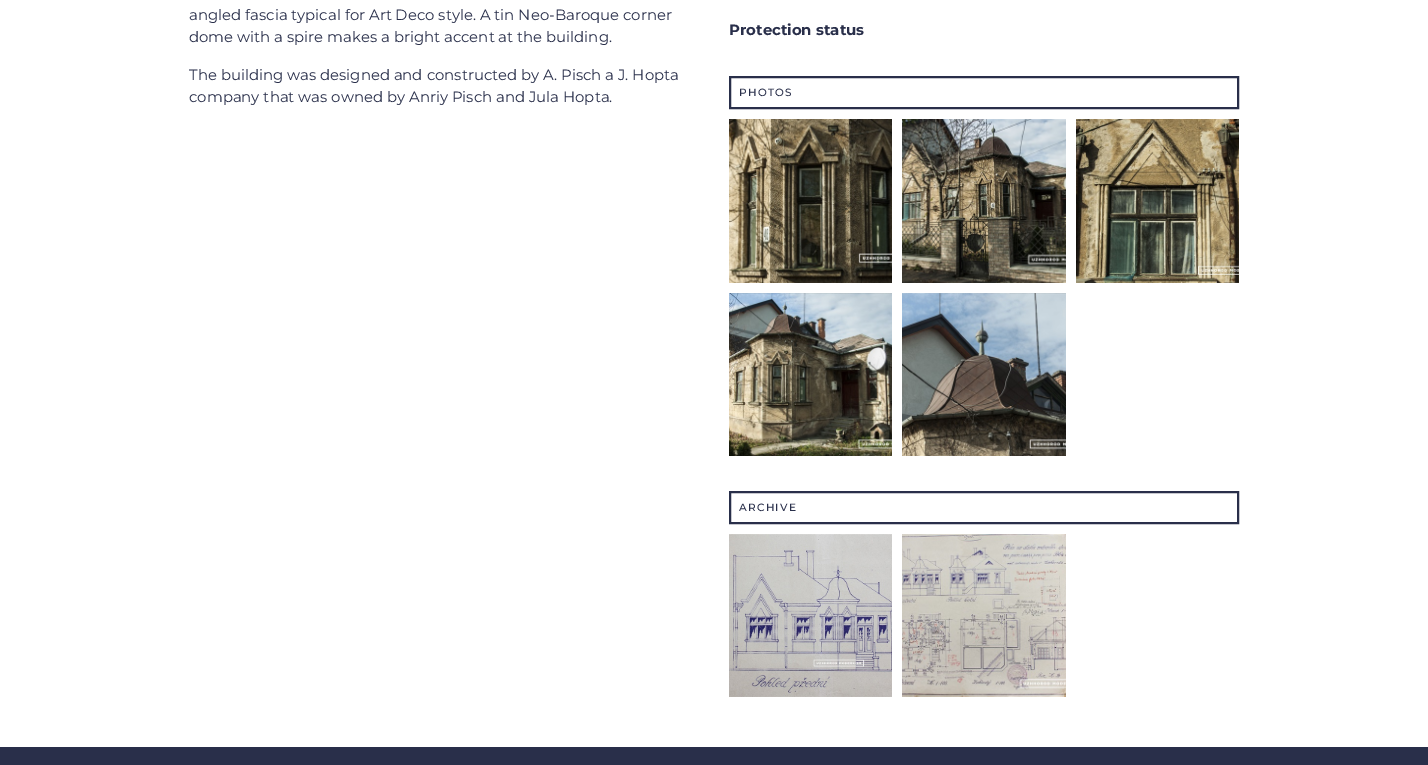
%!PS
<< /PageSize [1428 765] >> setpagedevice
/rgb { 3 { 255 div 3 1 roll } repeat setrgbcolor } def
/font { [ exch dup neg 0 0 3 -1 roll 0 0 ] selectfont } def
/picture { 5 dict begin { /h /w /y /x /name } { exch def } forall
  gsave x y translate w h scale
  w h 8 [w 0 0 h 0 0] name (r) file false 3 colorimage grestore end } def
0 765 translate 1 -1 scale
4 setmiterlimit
255 255 255 rgb
0 0 1428 765 rectfill
41 47 74 rgb
2 setlinewidth
730 77 508 31 rectstroke
(img/1.rgb) 729 119 163 164 picture
(img/2.rgb) 902 119 164 164 picture
(img/3.rgb) 1076 119 163 164 picture
(img/4.rgb) 729 293 163 163 picture
(img/5.rgb) 902 293 164 163 picture
730 492 508 31 rectstroke
(img/6.rgb) 729 534 163 163 picture
(img/7.rgb) 902 534 164 163 picture
0 747 1428 18 rectfill
/Montserrat-Regular 14.9 font
[
  [(angled fascia typical for Art Deco style. A tin Neo-Baroque corner) 189 20]
  [(dome with a spire makes a bright accent at the building.) 189 42]
  [(The building was designed and constructed by A. Pisсh a J. Hopta) 189 80]
  [(company that was owned by Anriy Pisch and Jula Hopta.) 189 102]
] { aload pop moveto show } forall
/Montserrat-Bold 14.9 font
729 35 moveto (Protection status) show
/Montserrat-Medium 10.5 font
739 96 moveto 1.25 0 (PHOTOS) ashow
739 511 moveto 1.25 0 (ARCHIVE) ashow
showpage
